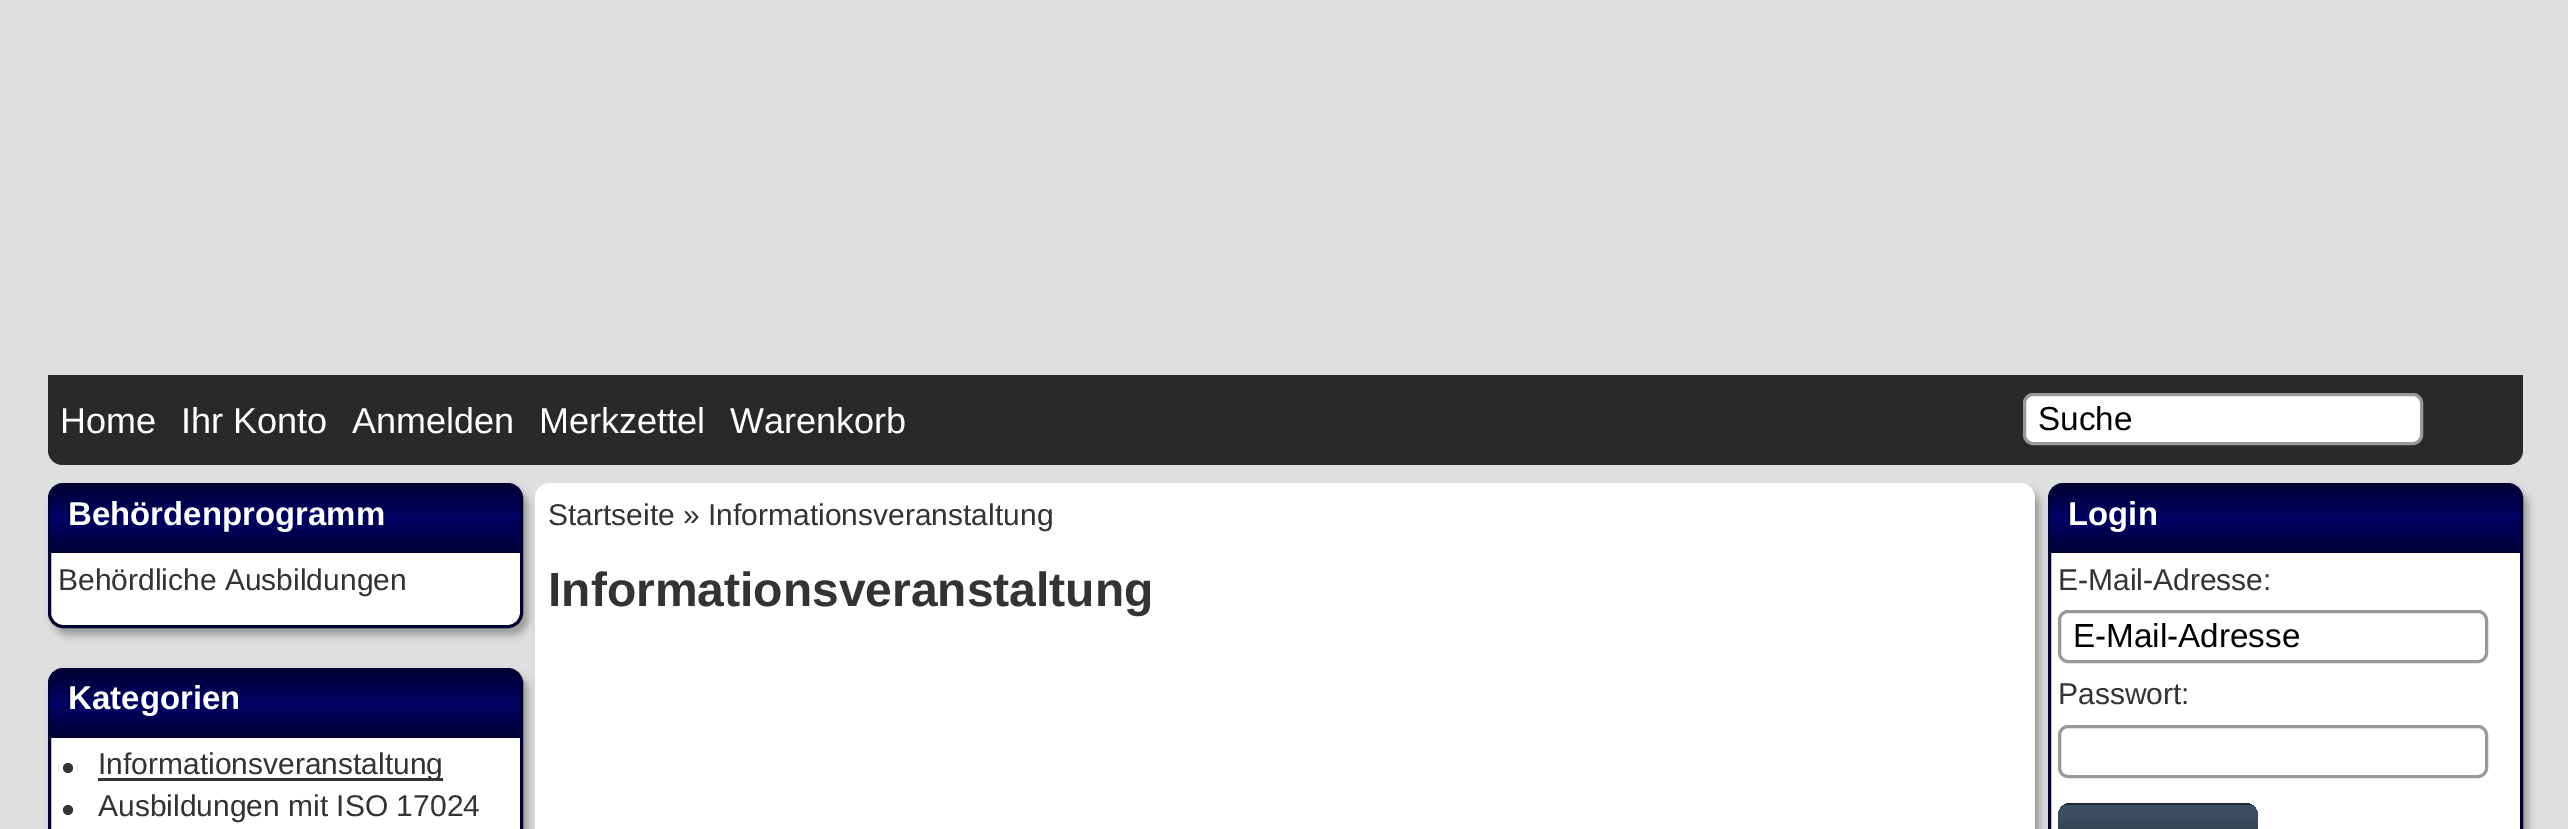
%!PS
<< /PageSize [2568 829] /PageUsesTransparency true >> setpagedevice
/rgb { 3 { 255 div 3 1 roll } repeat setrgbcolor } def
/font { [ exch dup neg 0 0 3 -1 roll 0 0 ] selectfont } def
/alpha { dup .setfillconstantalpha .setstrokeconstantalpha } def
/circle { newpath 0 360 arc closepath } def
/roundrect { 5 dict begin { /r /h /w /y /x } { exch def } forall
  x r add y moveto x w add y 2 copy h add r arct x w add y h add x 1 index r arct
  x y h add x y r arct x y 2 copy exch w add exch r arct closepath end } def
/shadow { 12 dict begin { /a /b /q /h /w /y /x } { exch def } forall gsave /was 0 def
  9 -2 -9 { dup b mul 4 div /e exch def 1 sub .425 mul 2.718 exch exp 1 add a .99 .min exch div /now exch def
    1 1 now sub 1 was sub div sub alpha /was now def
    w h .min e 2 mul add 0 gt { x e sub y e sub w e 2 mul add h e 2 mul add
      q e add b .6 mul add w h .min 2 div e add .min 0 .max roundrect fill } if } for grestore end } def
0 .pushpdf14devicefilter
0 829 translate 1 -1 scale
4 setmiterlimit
223 223 223 rgb
0 0 2568 829 rectfill
42 41 41 rgb
48 375 moveto 2523 375 lineto 2523 450 lineto 2523 458.5 2516.5 465 2508 465 curveto 63 465 lineto 54.5 465 48 458.5 48 450 curveto closepath fill
255 255 255 rgb
2024.5 394.5 397 49 8.5 roundrect gsave fill grestore
153 153 153 rgb
3 setlinewidth
stroke
53 490 475 145 15 4 1 shadow
255 255 255 rgb
49.5 484.5 472 142 13.5 roundrect gsave fill grestore
0 0 51 rgb
stroke
gsave 60 485 moveto 510 485 lineto 515.5 485 520 489.5 520 495 curveto 520 553 lineto 50 553 lineto 50 495 lineto 50 489.5 54.5 485 60 485 curveto closepath clip newpath
<< /ShadingType 2 /ColorSpace /DeviceRGB /Coords [285 485 285 553] /Extend [true true] /Function << /FunctionType 3 /Domain [0 1] /Functions [<< /FunctionType 2 /Domain [0 1] /C0 [0 0 0.2] /C1 [0 0 0.4] /N 1 >> << /FunctionType 2 /Domain [0 1] /C0 [0 0 0.4] /C1 [0 0 0.2] /N 1 >>] /Bounds [0.5] /Encode [0 1 0 1] >> >> shfill grestore
153 153 153 rgb
53 675 475 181 15 4 1 shadow
255 255 255 rgb
49.5 669.5 472 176 13.5 roundrect gsave fill grestore
0 0 51 rgb
stroke
gsave 60 670 moveto 510 670 lineto 515.5 670 520 674.5 520 680 curveto 520 738 lineto 50 738 lineto 50 680 lineto 50 674.5 54.5 670 60 670 curveto closepath clip newpath
<< /ShadingType 2 /ColorSpace /DeviceRGB /Coords [285 670 285 738] /Extend [true true] /Function << /FunctionType 3 /Domain [0 1] /Functions [<< /FunctionType 2 /Domain [0 1] /C0 [0 0 0.2] /C1 [0 0 0.4] /N 1 >> << /FunctionType 2 /Domain [0 1] /C0 [0 0 0.4] /C1 [0 0 0.2] /N 1 >>] /Bounds [0.5] /Encode [0 1 0 1] >> >> shfill grestore
51 51 51 rgb
68 768 5 circle fill
98 778 345 3 rectfill
68 810 5 circle fill
153 153 153 rgb
540 490 1500 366 15 4 1 shadow
255 255 255 rgb
535 483 1500 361 15 roundrect fill
153 153 153 rgb
2053 490 475 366 15 4 1 shadow
255 255 255 rgb
2049.5 484.5 472 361 13.5 roundrect gsave fill grestore
0 0 51 rgb
stroke
gsave 2060 485 moveto 2510 485 lineto 2515.5 485 2520 489.5 2520 495 curveto 2520 553 lineto 2050 553 lineto 2050 495 lineto 2050 489.5 2054.5 485 2060 485 curveto closepath clip newpath
<< /ShadingType 2 /ColorSpace /DeviceRGB /Coords [2285 485 2285 553] /Extend [true true] /Function << /FunctionType 3 /Domain [0 1] /Functions [<< /FunctionType 2 /Domain [0 1] /C0 [0 0 0.2] /C1 [0 0 0.4] /N 1 >> << /FunctionType 2 /Domain [0 1] /C0 [0 0 0.4] /C1 [0 0 0.2] /N 1 >>] /Bounds [0.5] /Encode [0 1 0 1] >> >> shfill grestore
153 153 153 rgb
2059.5 611.5 427 50 8.5 roundrect stroke
2059.5 726.5 427 50 8.5 roundrect stroke
gsave
2058 803 200 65 13 roundrect clip newpath
gsave 2058 803 moveto 2258 803 lineto 2258 805 lineto 2058 805 lineto closepath clip newpath
<< /ShadingType 2 /ColorSpace /DeviceRGB /Coords [2158 745 2158 805] /Extend [true true] /Function << /FunctionType 3 /Domain [0 1] /Functions [<< /FunctionType 2 /Domain [0 1] /C0 [0.231 0.302 0.376] /C1 [0.231 0.302 0.376] /N 1 >> << /FunctionType 2 /Domain [0 1] /C0 [0.231 0.302 0.376] /C1 [0.133 0.169 0.208] /N 1 >>] /Bounds [0.2] /Encode [0 1 0 1] >> >> shfill grestore
gsave 2058 805 moveto 2258 805 lineto 2258 829 lineto 2058 829 lineto closepath clip newpath
<< /ShadingType 2 /ColorSpace /DeviceRGB /Coords [2158 805 2158 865] /Extend [true true] /Function << /FunctionType 3 /Domain [0 1] /Functions [<< /FunctionType 2 /Domain [0 1] /C0 [0.231 0.302 0.376] /C1 [0.231 0.302 0.376] /N 1 >> << /FunctionType 2 /Domain [0 1] /C0 [0.231 0.302 0.376] /C1 [0.133 0.169 0.208] /N 1 >>] /Bounds [0.2] /Encode [0 1 0 1] >> >> shfill grestore
grestore
/LiberationSans-Regular 36 font
255 255 255 rgb
[
  [(Home) 60 433]
  [(Ihr Konto) 181 433]
  [(Anmelden) 352 433]
  [(Merkzettel) 539 433]
  [(Warenkorb) 730 433]
] { aload pop moveto show } forall
/LiberationSans-Regular 33.25 font
0 0 0 rgb
2038 430 moveto (Suche) show
/LiberationSans-Bold 33 font
255 255 255 rgb
68 525 moveto (Behördenprogramm) show
/LiberationSans-Regular 30 font
51 51 51 rgb
58 590 moveto (Behördliche Ausbildungen) show
/LiberationSans-Bold 33 font
255 255 255 rgb
68 709 moveto (Kategorien) show
/LiberationSans-Regular 30 font
51 51 51 rgb
[
  [(Informationsveranstaltung) 98 774]
  [(Ausbildungen mit ISO 17024) 98 816]
  [(Startseite » Informationsveranstaltung) 548 525]
] { aload pop moveto show } forall
/LiberationSans-Bold 48 font
548 606 moveto (Informationsveranstaltung) show
/LiberationSans-Bold 33 font
255 255 255 rgb
2068 525 moveto (Login) show
/LiberationSans-Regular 30 font
51 51 51 rgb
2058 590 moveto (E-Mail-Adresse:) show
/LiberationSans-Regular 33.25 font
0 0 0 rgb
2073 647 moveto (E-Mail-Adresse) show
/LiberationSans-Regular 30 font
51 51 51 rgb
2058 704 moveto (Passwort:) show
.poppdf14devicefilter showpage
